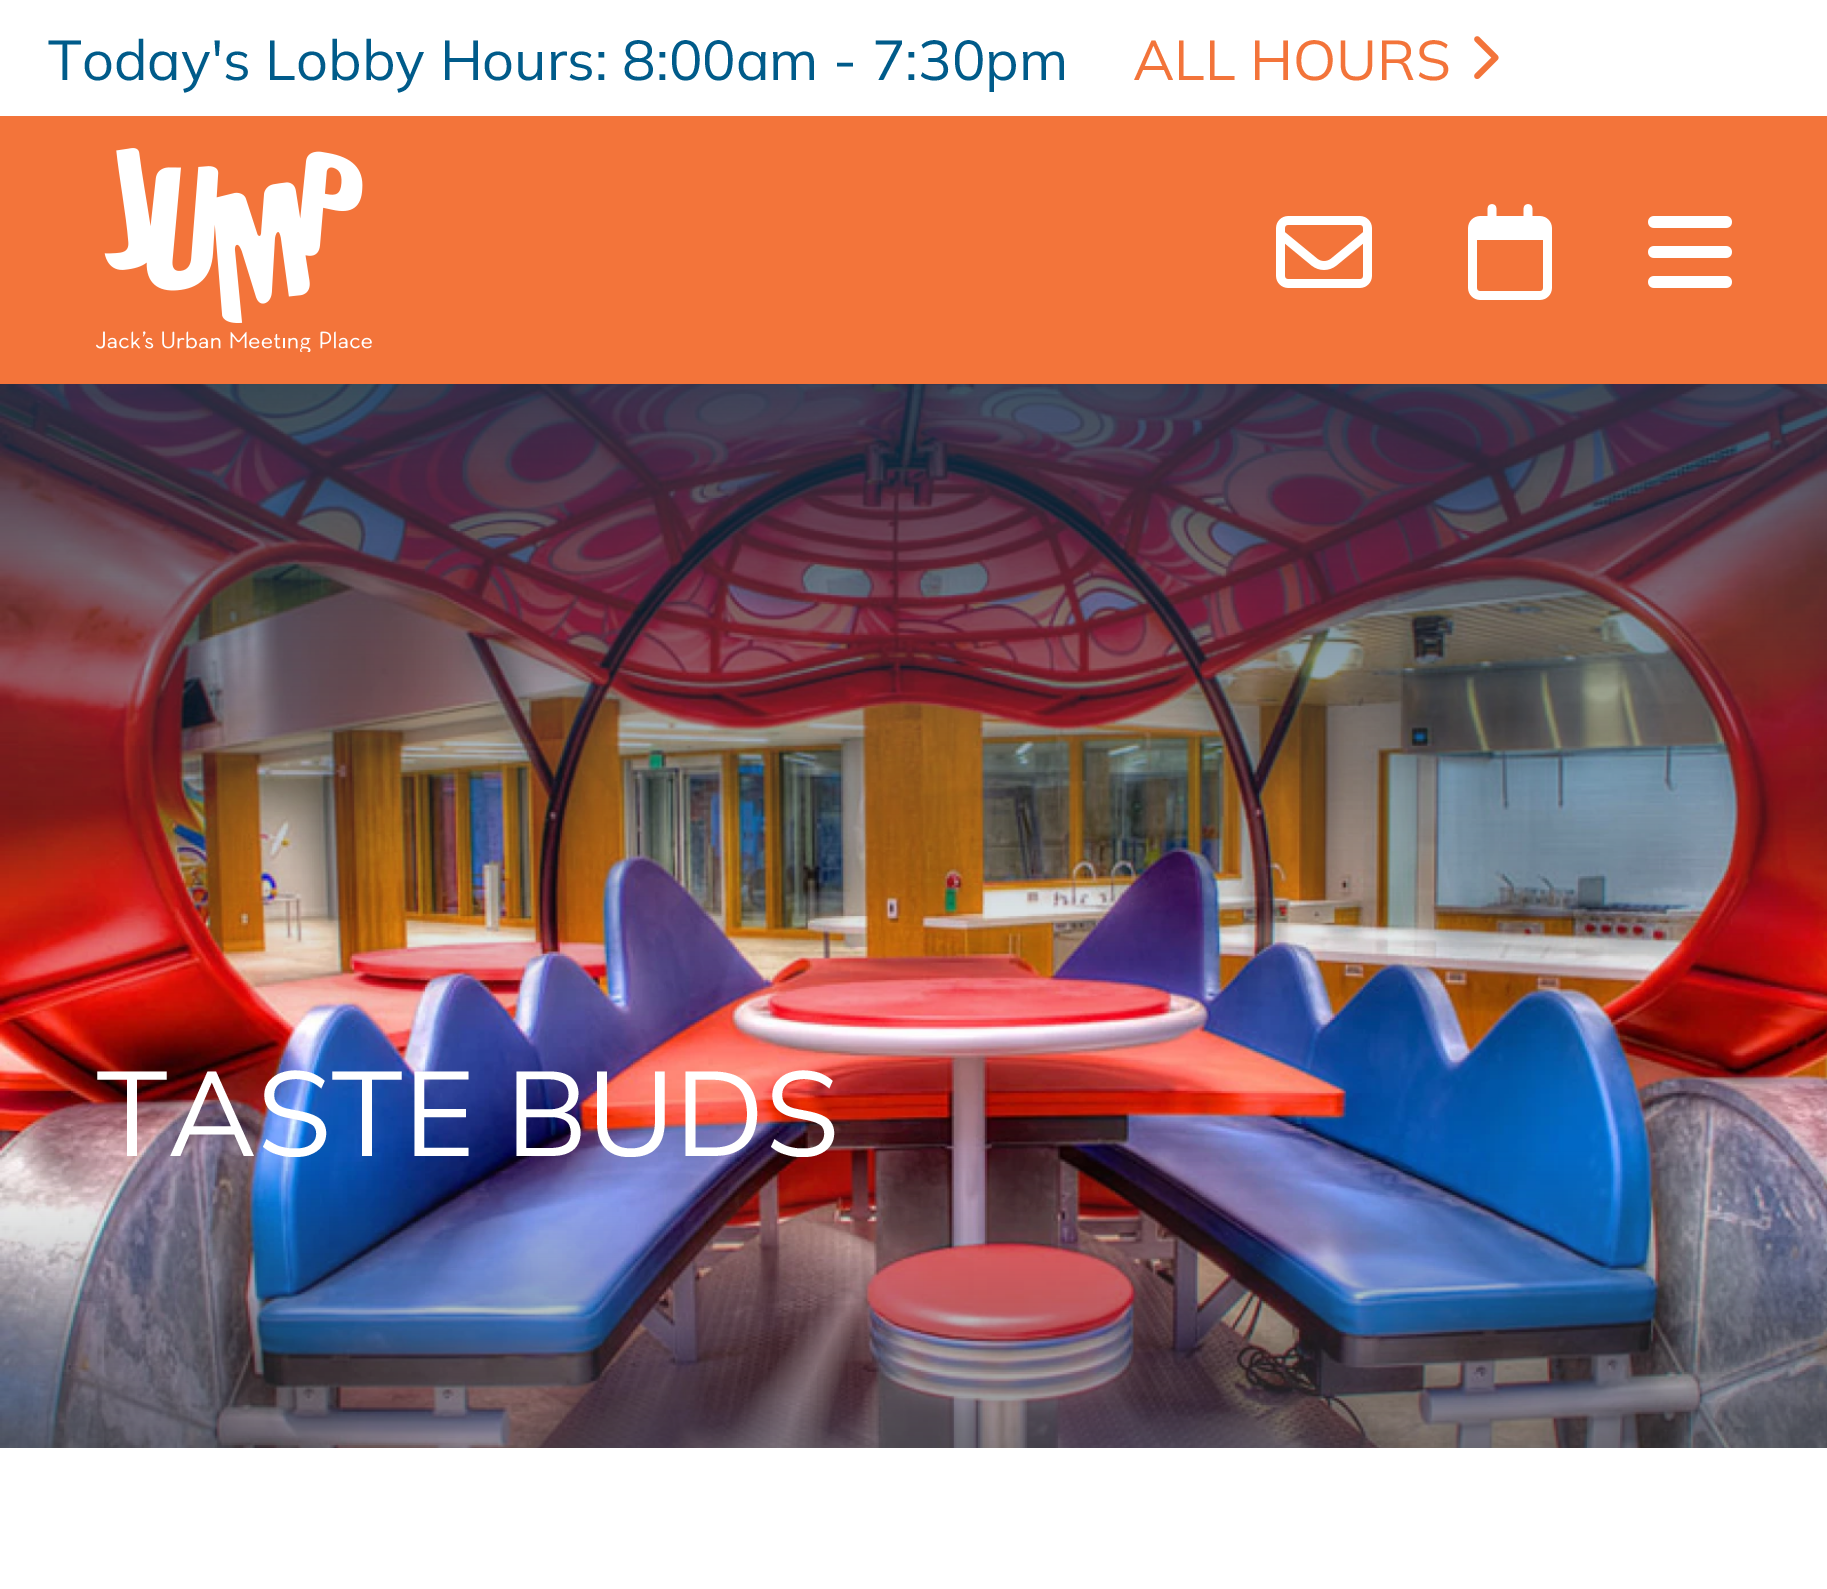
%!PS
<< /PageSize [1827 1589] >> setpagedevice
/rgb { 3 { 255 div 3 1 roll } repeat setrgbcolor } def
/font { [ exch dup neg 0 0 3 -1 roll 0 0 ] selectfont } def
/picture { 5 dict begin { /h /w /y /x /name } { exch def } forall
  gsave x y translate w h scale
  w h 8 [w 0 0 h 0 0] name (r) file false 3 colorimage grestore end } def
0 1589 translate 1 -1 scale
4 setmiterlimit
255 255 255 rgb
0 0 1827 1589 rectfill
(img/1.rgb) 1474 36 25 43 picture
243 116 58 rgb
0 116 1827 268 rectfill
(img/2.rgb) 96 148 276 204 picture
(img/3.rgb) 1276 216 96 72 picture
(img/4.rgb) 1468 204 84 96 picture
(img/5.rgb) 1648 216 84 72 picture
(img/6.rgb) 0 384 1827 1064 picture
/Mulish-Regular 56 font
0 91 138 rgb
48 80 moveto (Today's Lobby Hours: 8:00am - 7:30pm) show
243 116 58 rgb
1133 80 moveto (ALL HOURS) show
/Mulish-Regular 120 font
255 255 255 rgb
96 1156 moveto (TASTE BUDS) show
showpage
